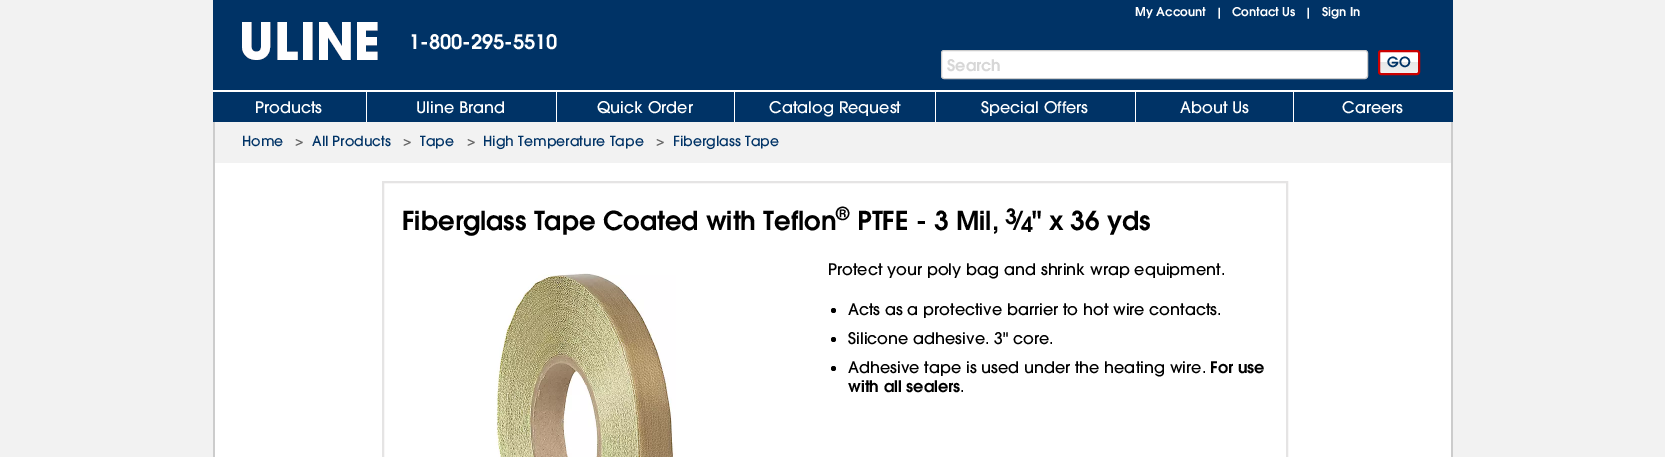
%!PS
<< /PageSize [1665 457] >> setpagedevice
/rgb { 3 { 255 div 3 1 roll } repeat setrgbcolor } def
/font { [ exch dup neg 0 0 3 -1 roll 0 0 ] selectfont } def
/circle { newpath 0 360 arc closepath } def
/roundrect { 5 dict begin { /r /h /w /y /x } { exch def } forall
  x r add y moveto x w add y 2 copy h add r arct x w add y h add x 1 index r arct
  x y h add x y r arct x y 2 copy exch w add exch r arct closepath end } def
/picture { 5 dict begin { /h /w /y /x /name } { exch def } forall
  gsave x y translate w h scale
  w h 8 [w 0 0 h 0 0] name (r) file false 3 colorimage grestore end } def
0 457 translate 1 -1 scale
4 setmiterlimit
242 242 242 rgb
0 0 1665 457 rectfill
255 255 255 rgb
215 163 1236 294 rectfill
0 51 102 rgb
213 0 1240 122 rectfill
(img/1.rgb) 242 22 136 38 picture
255 255 255 rgb
941.5 50.5 426 28 2.5 roundrect gsave fill grestore
204 204 204 rgb
stroke
gsave
1378 50 42 25 3 roundrect clip newpath
gsave 1378 52 moveto 1420 52 lineto 1420 73 lineto 1378 73 lineto closepath clip newpath
<< /ShadingType 2 /ColorSpace /DeviceRGB /Coords [1399 52 1399 73] /Extend [true true] /Function << /FunctionType 3 /Domain [0 1] /Functions [<< /FunctionType 2 /Domain [0 1] /C0 [1 1 1] /C1 [1 1 1] /N 1 >> << /FunctionType 2 /Domain [0 1] /C0 [0.906 0.906 0.906] /C1 [0.945 0.945 0.945] /N 1 >>] /Bounds [0.5] /Encode [0 1 0 1] >> >> shfill grestore
grestore
204 0 0 rgb
2 setlinewidth
1379 51 40 23 2 roundrect stroke
[
  [213 90 1240 2 255 255 255]
  [366 92 1 30 255 255 255]
  [556 92 1 30 255 255 255]
  [734 92 1 30 255 255 255]
  [935 92 1 30 255 255 255]
  [1135 92 1 30 255 255 255]
  [1293 92 1 30 255 255 255]
  [1451 122 2 335 204 204 204]
  [213 122 2 335 204 204 204]
] { aload pop rgb rectfill } forall
229 228 228 rgb
383 182 904 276 rectstroke
(img/2.rgb) 496 273 180 184 picture
0 0 0 rgb
833.5 310.5 2.5 circle fill
833.5 339.5 2.5 circle fill
833.5 368.5 2.5 circle fill
/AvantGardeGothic-SemiBold 12 font
255 255 255 rgb
1135 16 moveto (My Account) show
/AvantGardeGothic-SemiBold 11 font
1216 16 moveto (|) show
/AvantGardeGothic-SemiBold 12 font
1232 16 moveto (Contact Us) show
/AvantGardeGothic-SemiBold 11 font
1305 16 moveto (|) show
/AvantGardeGothic-SemiBold 12 font
1322 16 moveto (Sign In) show
/AvantGardeGothic-SemiBold 20 font
409 49 moveto (1-800-295-5510) show
/AvantGardeGothic-SemiBold 16 font
215 215 215 rgb
947 71 moveto (Search) show
/AvantGardeGothic-SemiBold 14 font
0 51 102 rgb
1387 67 moveto (GO) show
/AvantGardeGothic-Medium 16 font
255 255 255 rgb
[
  [(Products) 255 113]
  [(Uline Brand) 416 113]
  [(Quick Order) 597 113]
  [(Catalog Request) 769 113]
  [(Special Offers) 981 113]
  [(About Us) 1180 113]
  [(Careers) 1342 113]
] { aload pop moveto show } forall
/AvantGardeGothic-Medium 14 font
0 51 102 rgb
242 146 moveto (Home) show
102 102 102 rgb
295 146 moveto (>) show
0 51 102 rgb
312 146 moveto (All Products) show
102 102 102 rgb
403 146 moveto (>) show
0 51 102 rgb
420 146 moveto (Tape) show
102 102 102 rgb
467 146 moveto (>) show
0 51 102 rgb
483 146 moveto (High Temperature Tape) show
102 102 102 rgb
656 146 moveto (>) show
0 51 102 rgb
673 146 moveto (Fiberglass Tape) show
/AvantGardeGothic-SemiBold 26 font
0 0 0 rgb
402 230 moveto (Fiberglass Tape Coated with Teflon) show
/AvantGardeGothic-SemiBold 18 font
836 220 moveto (®) show
/AvantGardeGothic-SemiBold 26 font
857 230 moveto (PTFE - 3 Mil,) show
/AvantGardeGothic-SemiBold 21 font
1005 224 moveto (3) show
/AvantGardeGothic-SemiBold 26 font
1016 230 moveto (⁄) show
/AvantGardeGothic-SemiBold 21 font
1021 232 moveto (4) show
/AvantGardeGothic-SemiBold 26 font
1032 230 moveto (" x 36 yds) show
/AvantGardeGothic-Medium 16 font
[
  [(Protect your poly bag and shrink wrap equipment.) 828 275]
  [(Acts as a protective barrier to hot wire contacts.) 848 315]
  [(Silicone adhesive. 3" core.) 848 344]
  [(Adhesive tape is used under the heating wire.) 848 373]
] { aload pop moveto show } forall
/AvantGardeGothic-SemiBold 16 font
1210 373 moveto (For use) show
848 392 moveto (with all sealers) show
/AvantGardeGothic-Medium 16 font
960 392 moveto (.) show
showpage
